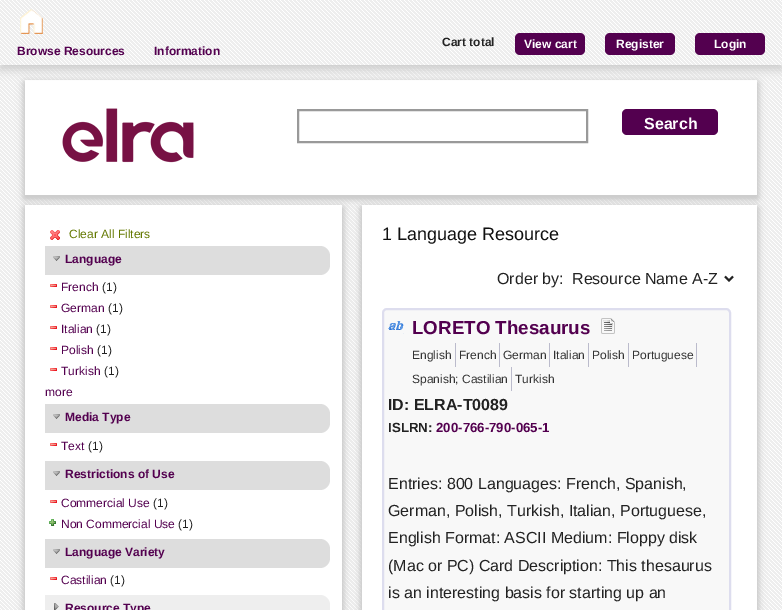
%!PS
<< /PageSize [782 610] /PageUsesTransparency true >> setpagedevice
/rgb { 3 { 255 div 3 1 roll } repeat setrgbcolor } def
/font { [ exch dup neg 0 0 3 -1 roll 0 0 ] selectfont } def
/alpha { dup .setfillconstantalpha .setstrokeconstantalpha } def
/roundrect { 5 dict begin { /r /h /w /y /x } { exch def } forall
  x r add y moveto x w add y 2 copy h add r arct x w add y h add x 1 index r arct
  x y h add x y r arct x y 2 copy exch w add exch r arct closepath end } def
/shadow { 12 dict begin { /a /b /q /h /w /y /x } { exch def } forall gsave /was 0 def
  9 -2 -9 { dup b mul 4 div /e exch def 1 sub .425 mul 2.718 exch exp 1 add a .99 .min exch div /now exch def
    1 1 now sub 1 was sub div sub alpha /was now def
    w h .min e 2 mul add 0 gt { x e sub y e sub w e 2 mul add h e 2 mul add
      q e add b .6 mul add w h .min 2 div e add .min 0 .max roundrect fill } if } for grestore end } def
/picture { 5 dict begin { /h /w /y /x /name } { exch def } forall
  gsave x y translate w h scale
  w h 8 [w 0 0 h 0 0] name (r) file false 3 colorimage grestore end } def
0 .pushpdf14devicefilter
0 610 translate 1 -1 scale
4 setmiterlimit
238 238 238 rgb
0 0 782 610 rectfill
(img/1.rgb) 0 65 782 545 picture
204 204 204 rgb
24 83 732 115 0 2.5 1 shadow
26 83 732 115 0 2.5 1 shadow
25 83 732 115 0 5 1 shadow
255 255 255 rgb
25 80 732 115 rectfill
204 204 204 rgb
0 5 782 65 0 5 1 shadow
238 238 238 rgb
0 0 782 65 rectfill
(img/2.rgb) 0 0 782 65 picture
(img/3.rgb) 20 9 23 25 picture
83 0 79 rgb
515 33 70 22 5 roundrect fill
605 33 70 22 5 roundrect fill
695 33 70 22 5 roundrect fill
(img/4.rgb) 62 108 132 55 picture
153 153 153 rgb
2 setlinewidth
298 110 289 32 rectstroke
83 0 79 rgb
622 109 96 26 5 roundrect fill
204 204 204 rgb
24 208 317 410 0 2.5 1 shadow
26 208 317 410 0 2.5 1 shadow
25 208 317 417 0 5 1 shadow
255 255 255 rgb
25 205 317 405 rectfill
(img/5.rgb) 50 227 10 13 picture
221 221 221 rgb
45 246 moveto 320 246 lineto 325.5 246 330 250.5 330 256 curveto 330 265 lineto 330 270.5 325.5 275 320 275 curveto 45 275 lineto closepath fill
(img/6.rgb) 53 256 7 5 picture
(img/7.rgb) 50 284 7 3 picture
(img/7.rgb) 50 305 7 3 picture
(img/7.rgb) 50 326 7 3 picture
(img/7.rgb) 50 347 7 3 picture
(img/7.rgb) 50 368 7 3 picture
45 404 moveto 320 404 lineto 325.5 404 330 408.5 330 414 curveto 330 423 lineto 330 428.5 325.5 433 320 433 curveto 45 433 lineto closepath fill
(img/6.rgb) 53 414 7 5 picture
(img/7.rgb) 50 443 7 3 picture
45 461 moveto 320 461 lineto 325.5 461 330 465.5 330 471 curveto 330 480 lineto 330 485.5 325.5 490 320 490 curveto 45 490 lineto closepath fill
(img/6.rgb) 53 471 7 5 picture
(img/7.rgb) 50 500 7 3 picture
(img/8.rgb) 49 519 7 7 picture
45 539 moveto 320 539 lineto 325.5 539 330 543.5 330 549 curveto 330 558 lineto 330 563.5 325.5 568 320 568 curveto 45 568 lineto closepath fill
(img/6.rgb) 53 549 7 5 picture
(img/7.rgb) 50 577 7 3 picture
238 238 238 rgb
45 595 moveto 320 595 lineto 325.5 595 330 599.5 330 605 curveto 330 610 lineto 330 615.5 325.5 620 320 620 curveto 45 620 lineto closepath fill
(img/9.rgb) 54 603 5 7 picture
204 204 204 rgb
361 208 395 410 0 2.5 1 shadow
363 208 395 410 0 2.5 1 shadow
362 208 395 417 0 5 1 shadow
255 255 255 rgb
362 205 395 405 rectfill
34 34 34 rgb
725 276.5 moveto 729 280.5 lineto 733 276.5 lineto stroke
248 248 248 rgb
383 309 347 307 4 roundrect gsave fill grestore
221 221 238 rgb
stroke
(img/10.rgb) 388 321 16 13 picture
(img/11.rgb) 601 318 14 16 picture
[
  [455 343 1 24 187 187 204]
  [499 343 1 24 187 187 204]
  [549 343 1 24 187 187 204]
  [588 343 1 24 187 187 204]
  [628 343 1 24 187 187 204]
  [696 343 1 24 187 187 204]
  [511 367 1 24 187 187 204]
] { aload pop rgb rectfill } forall
/LiberationSans-Bold 12 font
83 0 79 rgb
17 55 moveto (Browse Resources) show
154 55 moveto (Information) show
34 34 34 rgb
442 46 moveto (Cart total) show
255 255 255 rgb
[
  [(View cart) 524 48]
  [(Register) 616 48]
  [(Login) 714 48]
] { aload pop moveto show } forall
/LiberationSans-Bold 16 font
644 129 moveto (Search) show
/LiberationSans-Regular 12 font
99 120 0 rgb
69 238 moveto (Clear All Filters) show
/LiberationSans-Bold 12 font
83 0 79 rgb
65 263 moveto (Language) show
/LiberationSans-Regular 12 font
61 291 moveto (French) show
34 34 34 rgb
102 291 moveto (\(1\)) show
83 0 79 rgb
61 312 moveto (German) show
34 34 34 rgb
108 312 moveto (\(1\)) show
83 0 79 rgb
61 333 moveto (Italian) show
34 34 34 rgb
96 333 moveto (\(1\)) show
83 0 79 rgb
61 354 moveto (Polish) show
34 34 34 rgb
97 354 moveto (\(1\)) show
83 0 79 rgb
61 375 moveto (Turkish) show
34 34 34 rgb
104 375 moveto (\(1\)) show
83 0 79 rgb
45 396 moveto (more) show
/LiberationSans-Bold 12 font
65 421 moveto (Media Type) show
/LiberationSans-Regular 12 font
61 450 moveto (Text) show
34 34 34 rgb
88 450 moveto (\(1\)) show
/LiberationSans-Bold 12 font
83 0 79 rgb
65 478 moveto (Restrictions of Use) show
/LiberationSans-Regular 12 font
61 507 moveto (Commercial Use) show
34 34 34 rgb
153 507 moveto (\(1\)) show
83 0 79 rgb
61 528 moveto (Non Commercial Use) show
34 34 34 rgb
178 528 moveto (\(1\)) show
/LiberationSans-Bold 12 font
83 0 79 rgb
65 556 moveto (Language Variety) show
/LiberationSans-Regular 12 font
61 584 moveto (Castilian) show
34 34 34 rgb
110 584 moveto (\(1\)) show
/LiberationSans-Bold 12 font
83 0 79 rgb
65 612 moveto (Resource Type) show
/LiberationSans-Regular 18 font
17 17 17 rgb
382 240 moveto (1 Language Resource) show
/LiberationSans-Regular 16 font
34 34 34 rgb
497 284 moveto (Order by:) show
572 284 moveto (Resource Name A-Z) show
/LiberationSans-Bold 18.75 font
83 0 79 rgb
412 334 moveto (LORETO Thesaurus) show
/LiberationSans-Regular 12 font
51 51 51 rgb
[
  [(English) 412 359]
  [(French) 459 359]
  [(German) 503 359]
  [(Italian) 553 359]
  [(Polish) 592 359]
  [(Portuguese) 632 359]
  [(Spanish; Castilian) 412 383]
  [(Turkish) 515 383]
] { aload pop moveto show } forall
/LiberationSans-Bold 16 font
34 34 34 rgb
388 410 moveto (ID: ELRA-T0089) show
/LiberationSans-Bold 13.25 font
388 432 moveto (ISLRN:) show
83 0 79 rgb
436 432 moveto (200-766-790-065-1) show
/LiberationSans-Regular 16 font
34 34 34 rgb
[
  [(Entries: 800 Languages: French, Spanish,) 388 489]
  [(German, Polish, Turkish, Italian, Portuguese,) 388 516]
  [(English Format: ASCII Medium: Floppy disk) 388 543]
  [(\(Mac or PC\) Card Description: This thesaurus) 388 571]
  [(is an interesting basis for starting up an) 388 598]
] { aload pop moveto show } forall
.poppdf14devicefilter showpage
